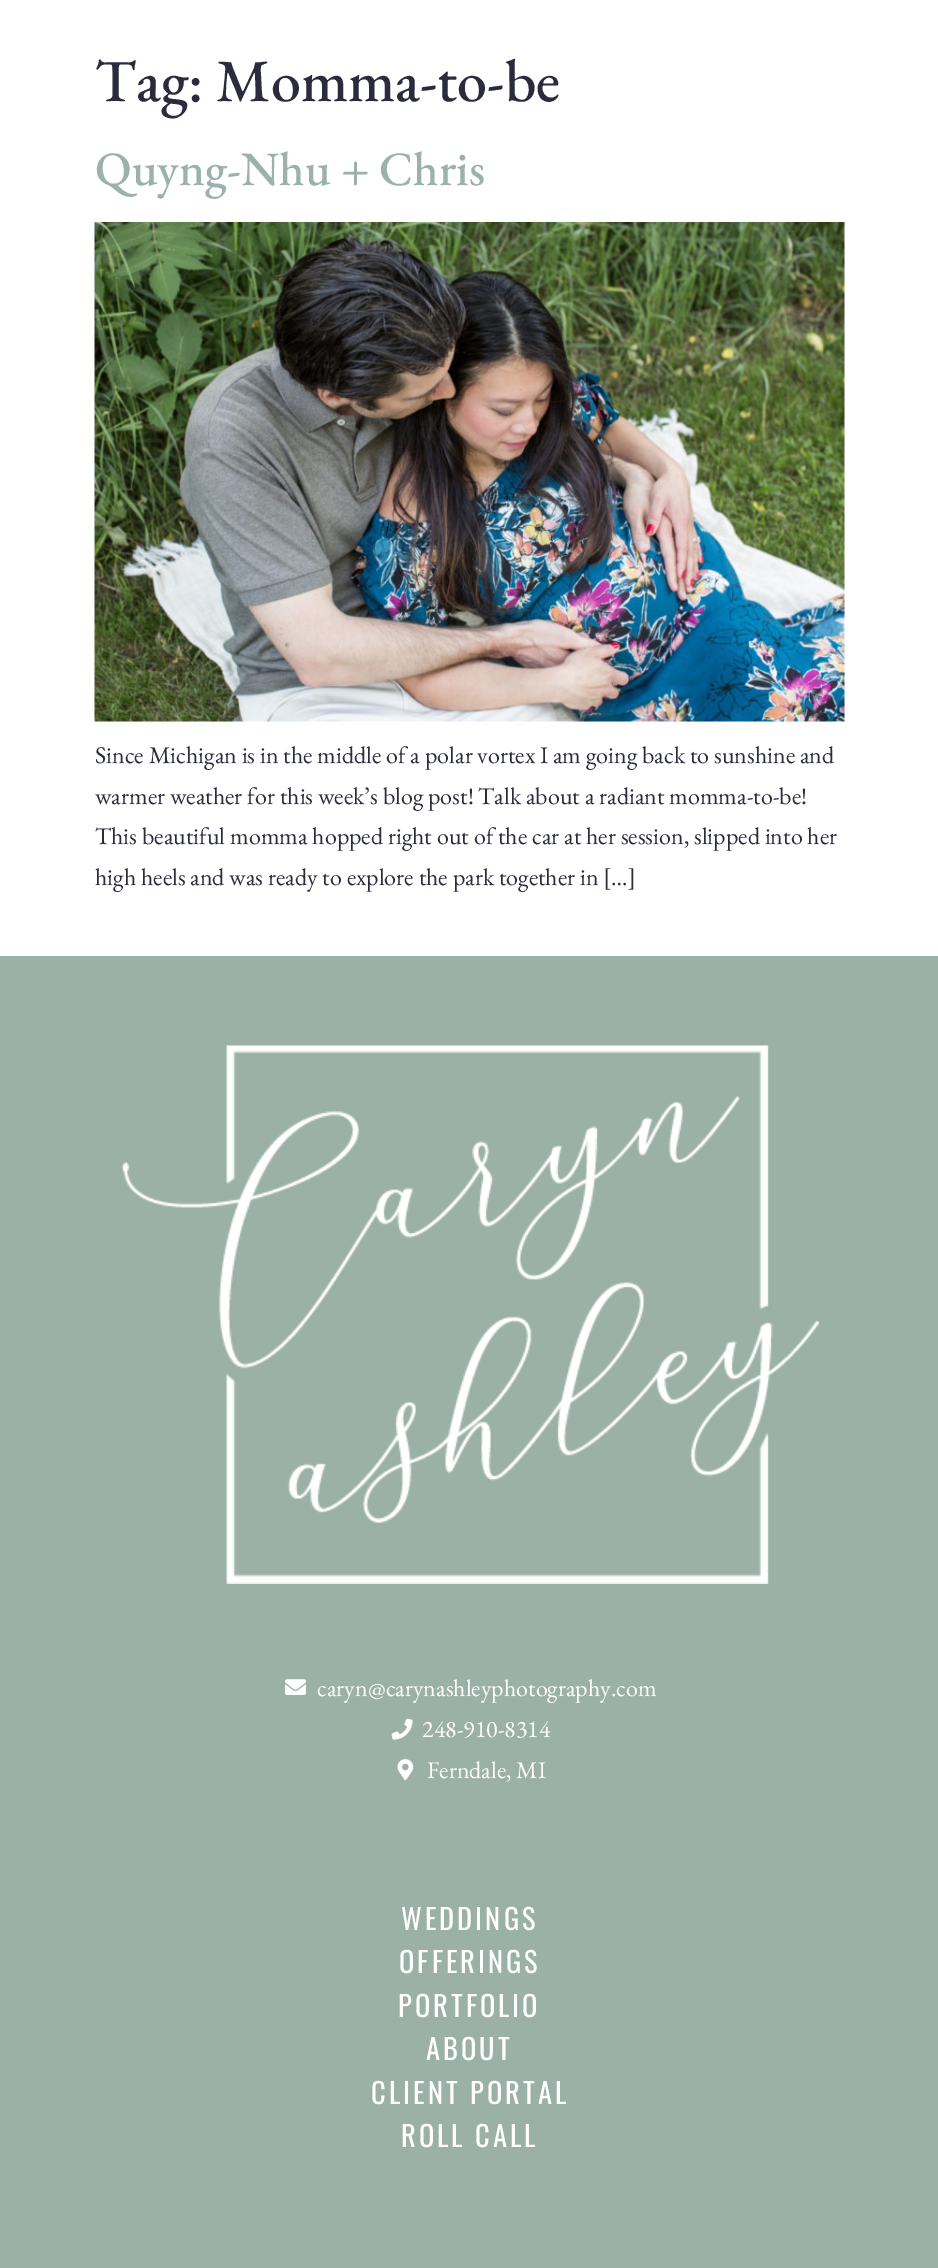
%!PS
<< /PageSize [938 2268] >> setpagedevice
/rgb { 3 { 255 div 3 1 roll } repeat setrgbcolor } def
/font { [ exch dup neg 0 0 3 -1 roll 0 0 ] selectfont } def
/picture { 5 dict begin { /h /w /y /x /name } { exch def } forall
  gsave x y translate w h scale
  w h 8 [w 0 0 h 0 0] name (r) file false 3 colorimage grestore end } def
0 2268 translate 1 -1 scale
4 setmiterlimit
255 255 255 rgb
0 0 938 2268 rectfill
(img/1.rgb) 94 222 751 500 picture
155 177 167 rgb
0 956 938 1312 rectfill
(img/2.rgb) 121 1045 698 539 picture
(img/3.rgb) 285 1679 21 16 picture
(img/4.rgb) 391 1718 22 22 picture
(img/5.rgb) 397 1759 17 22 picture
/EBGaramond-Medium 60 font
42 44 62 rgb
95 101 moveto (Tag: Momma-to-be) show
/EBGaramond-Medium 48 font
155 178 172 rgb
95 185 moveto (Quyng-Nhu + Chris) show
/EBGaramond-Regular 24 font
42 44 62 rgb
[
  [(Since Michigan is in the middle of a polar vortex I am going back to sunshine and) 95 763]
  [(warmer weather for this week’s blog post! Talk about a radiant momma-to-be!) 95 804]
  [(This beautiful momma hopped right out of the car at her session, slipped into her) 95 844]
  [(high heels and was ready to explore the park together in […]) 95 885]
] { aload pop moveto show } forall
255 255 255 rgb
[
  [(caryn@carynashleyphotography.com) 317 1696]
  [(248-910-8314) 422 1737]
  [(Ferndale, MI) 427 1778]
] { aload pop moveto show } forall
/Oswald-Regular 28.5 font
401 1930 moveto 3 0 (WEDDINGS) ashow
399 1973 moveto 3 0 (OFFERINGS) ashow
398 2017 moveto 3 0 (PORTFOLIO) ashow
426 2060 moveto 3 0 (ABOUT) ashow
371 2104 moveto 3 0 (CLIENT PORTAL) ashow
401 2147 moveto 3 0 (ROLL CALL) ashow
showpage
